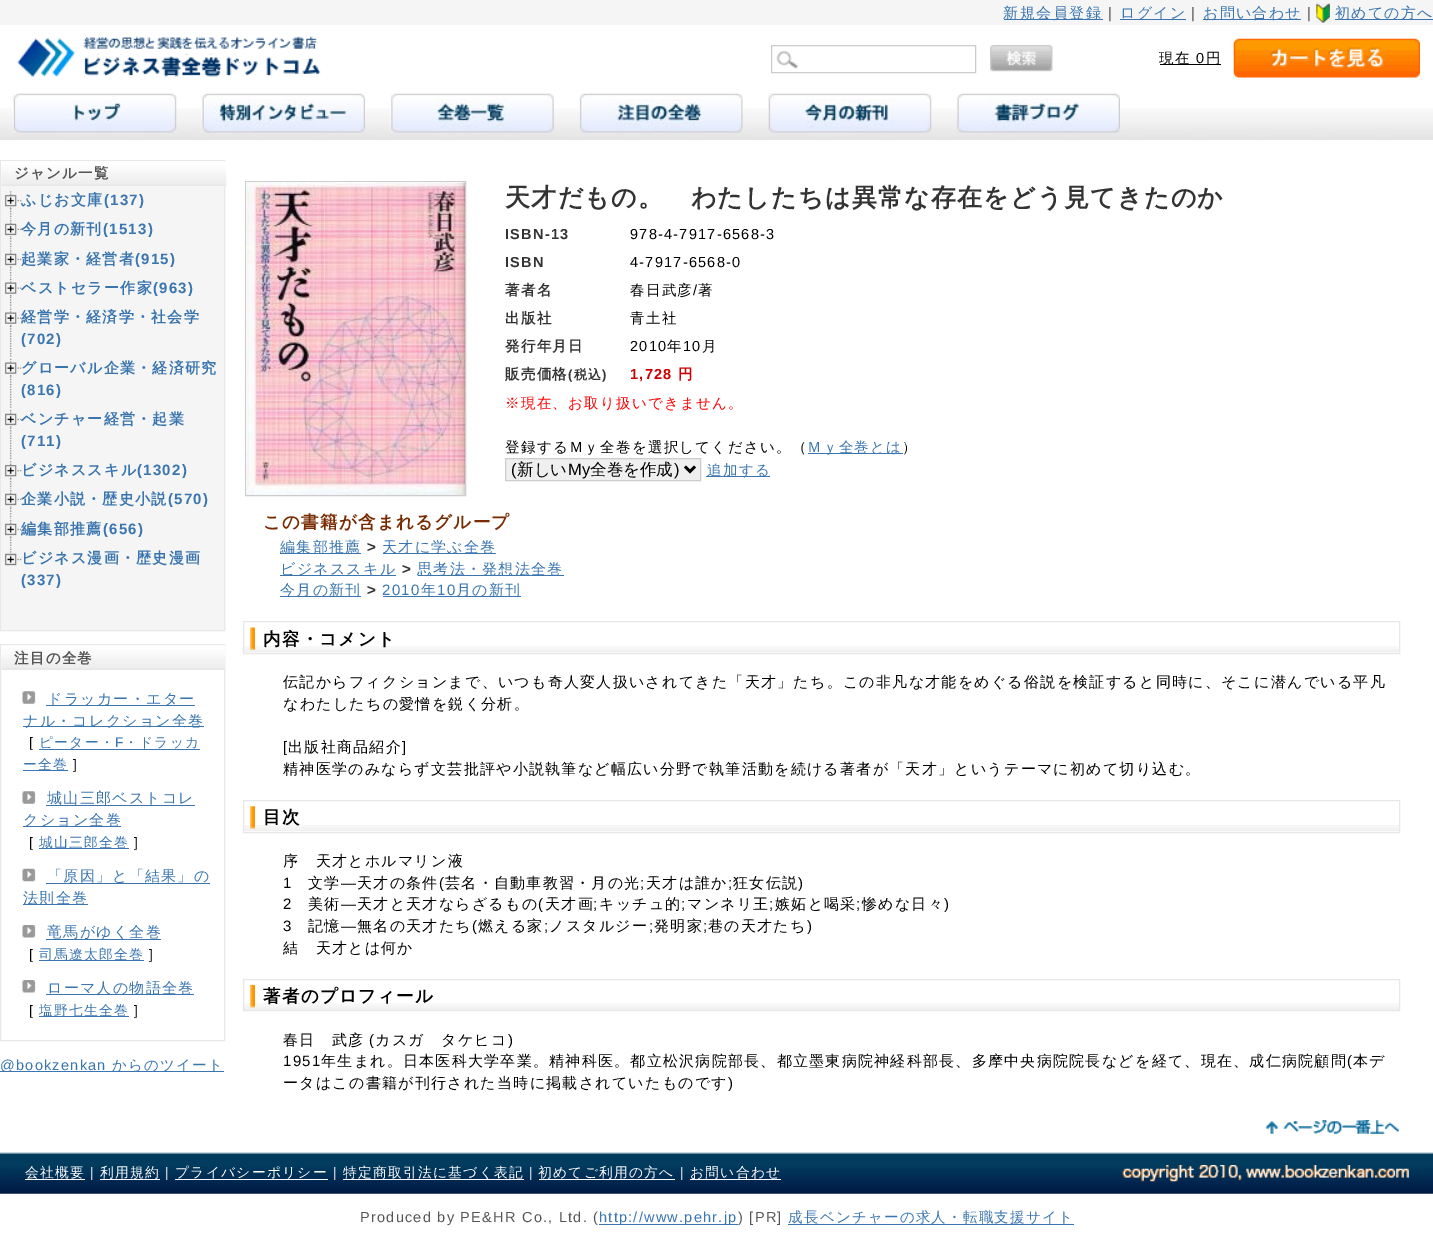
%!PS
<< /PageSize [1433 1239] >> setpagedevice
/rgb { 3 { 255 div 3 1 roll } repeat setrgbcolor } def
/font { [ exch dup neg 0 0 3 -1 roll 0 0 ] selectfont } def
/picture { 5 dict begin { /h /w /y /x /name } { exch def } forall
  gsave x y translate w h scale
  w h 8 [w 0 0 h 0 0] name (r) file false 3 colorimage grestore end } def
0 1239 translate 1 -1 scale
4 setmiterlimit
255 255 255 rgb
0 0 1433 1239 rectfill
[
  [0 0 1433 25 245 245 245]
  [1004 19 99 1 58 117 175]
  [1120 19 66 1 58 117 175]
  [1203 19 98 1 58 117 175]
] { aload pop rgb rectfill } forall
(img/1.rgb) 1316 3 14 20 picture
1335 19 98 1 rectfill
(img/2.rgb) 17 36 304 42 picture
(img/3.rgb) 776 50 23 19 picture
204 204 204 rgb
771.5 45.5 204 27 rectstroke
(img/4.rgb) 990 45 63 27 picture
0 0 0 rgb
1160 64 61 1 rectfill
(img/5.rgb) 1233 38 187 40 picture
(img/6.rgb) 0 108 1433 32 picture
(img/7.rgb) 12 93 165 40 picture
(img/8.rgb) 201 93 164 40 picture
(img/9.rgb) 390 93 164 40 picture
(img/10.rgb) 579 93 164 40 picture
(img/11.rgb) 768 93 164 40 picture
(img/12.rgb) 956 93 164 40 picture
232 232 232 rgb
0.5 160.5 224 470 rectstroke
(img/13.rgb) 1 161 226 26 picture
245 245 245 rgb
1 186 223 444 rectfill
(img/14.rgb) 9 191 3 28 picture
(img/15.rgb) 4 194 18 15 picture
(img/16.rgb) 9 219 3 30 picture
(img/17.rgb) 4 223 18 15 picture
(img/18.rgb) 9 249 3 29 picture
(img/19.rgb) 4 253 18 15 picture
(img/20.rgb) 9 278 3 30 picture
(img/21.rgb) 4 282 18 15 picture
(img/22.rgb) 9 308 3 49 picture
(img/23.rgb) 4 312 18 15 picture
(img/24.rgb) 9 358 3 50 picture
(img/25.rgb) 4 362 18 15 picture
(img/26.rgb) 9 409 3 51 picture
(img/27.rgb) 4 413 18 15 picture
(img/14.rgb) 9 461 3 28 picture
(img/15.rgb) 4 464 18 15 picture
(img/16.rgb) 9 489 3 30 picture
(img/17.rgb) 4 493 18 15 picture
(img/18.rgb) 9 519 3 29 picture
(img/19.rgb) 4 523 18 15 picture
(img/28.rgb) 4 548 18 18 picture
232 232 232 rgb
0.5 644.5 224 396 rectstroke
(img/29.rgb) 1 645 224 25 picture
(img/30.rgb) 22 691 14 13 picture
[
  [46 705 149 1 58 117 175]
  [23 726 181 1 58 117 175]
  [39 749 161 1 58 117 175]
  [23 770 45 1 58 117 175]
] { aload pop rgb rectfill } forall
(img/30.rgb) 22 791 14 13 picture
[
  [46 805 149 1 58 117 175]
  [23 826 98 1 58 117 175]
  [39 848 90 1 58 117 175]
] { aload pop rgb rectfill } forall
(img/31.rgb) 22 868 14 14 picture
46 883 164 1 rectfill
23 904 65 1 rectfill
(img/32.rgb) 22 925 14 13 picture
46 939 115 1 rectfill
39 960 105 1 rectfill
(img/32.rgb) 22 980 14 13 picture
[
  [46 994 148 1 58 117 175]
  [39 1016 90 1 58 117 175]
  [0 1071 224 1 58 117 175]
] { aload pop rgb rectfill } forall
204 204 204 rgb
245.5 181.5 220 314 rectstroke
(img/33.rgb) 246 182 219 313 picture
58 117 175 rgb
808 453 95 1 rectfill
239 239 239 rgb
505.5 458.5 moveto 700.5 458.5 lineto 700.5 480.5 lineto 505.5 480.5 lineto closepath gsave fill grestore
204 204 204 rgb
stroke
0 0 0 rgb
2.5 setlinewidth
685 466.5 moveto 690 471.5 lineto 695 466.5 lineto stroke
[
  [706 476 64 1 58 117 175]
  [280 553 81 1 58 117 175]
  [383 553 113 1 58 117 175]
  [280 575 116 1 58 117 175]
  [418 575 146 1 58 117 175]
  [280 596 81 1 58 117 175]
  [383 596 138 1 58 117 175]
] { aload pop rgb rectfill } forall
(img/34.rgb) 242 646 1157 7 picture
232 232 232 rgb
1 setlinewidth
243.5 621.5 1156 32 rectstroke
(img/35.rgb) 250 627 5 23 picture
(img/36.rgb) 242 825 1157 7 picture
243.5 800.5 1156 32 rectstroke
(img/37.rgb) 250 806 5 23 picture
(img/38.rgb) 242 1003 1157 7 picture
243.5 979.5 1156 31 rectstroke
(img/39.rgb) 250 985 5 23 picture
(img/40.rgb) 1265 1120 134 14 picture
(img/41.rgb) 0 1152 1433 42 picture
[
  [25 1179 60 1 255 255 255]
  [100 1179 60 1 255 255 255]
  [175 1179 153 1 255 255 255]
  [343 1179 181 1 255 255 255]
  [539 1179 136 1 255 255 255]
  [690 1179 91 1 255 255 255]
] { aload pop rgb rectfill } forall
(img/42.rgb) 1122 1165 287 17 picture
58 117 175 rgb
599 1224 139 1 rectfill
788 1224 286 1 rectfill
/WenQuanYiZenHei-Medium 15 font
1003 18 moveto 1.5 0 (新規会員登録) ashow
/LiberationSans-Regular 15 font
85 85 85 rgb
1108 18 moveto 1.5 0 (|) ashow
/WenQuanYiZenHei-Medium 15 font
58 117 175 rgb
1120 18 moveto 1.25 0 (ログイン) ashow
/LiberationSans-Regular 15 font
85 85 85 rgb
1191 18 moveto 1.25 0 (|) ashow
/WenQuanYiZenHei-Medium 15 font
58 117 175 rgb
1203 18 moveto 1.25 0 (お問い合わせ) ashow
/LiberationSans-Regular 15 font
85 85 85 rgb
1307 18 moveto 1.25 0 (|) ashow
/WenQuanYiZenHei-Medium 15 font
58 117 175 rgb
1335 18 moveto 1.25 0 (初めての方へ) ashow
/WenQuanYiZenHei-Medium 14.5 font
0 0 0 rgb
1159 63 moveto 1.25 0 (現在) ashow
/LiberationSans-Regular 14.5 font
1196 63 moveto 1.25 0 (0) ashow
/WenQuanYiZenHei-Medium 14.5 font
1206 63 moveto 1.25 0 (円) ashow
/WenQuanYiZenHei-Bold 14.5 font
85 85 85 rgb
14 178 moveto 1.25 0 (ジャンル一覧) ashow
/WenQuanYiZenHei-Bold 15 font
58 117 175 rgb
21 205 moveto 1.25 0 (ふじお文庫) ashow
/LiberationSans-Bold 15 font
104 205 moveto 1.25 0 (\(137\)) ashow
/WenQuanYiZenHei-Bold 15 font
21 234 moveto 1.25 0 (今月の新刊) ashow
/LiberationSans-Bold 15 font
103 234 moveto 1.25 0 (\(1513\)) ashow
/WenQuanYiZenHei-Bold 15 font
21 264 moveto 1.25 0 (起業家・経営者) ashow
/LiberationSans-Bold 15 font
135 264 moveto 1.25 0 (\(915\)) ashow
/WenQuanYiZenHei-Bold 15 font
21 293 moveto 1.25 0 (ベストセラー作家) ashow
/LiberationSans-Bold 15 font
153 293 moveto 1.25 0 (\(963\)) ashow
/WenQuanYiZenHei-Bold 15 font
21 322 moveto 1.25 0 (経営学・経済学・社会学) ashow
/LiberationSans-Bold 15 font
21 344 moveto 1.25 0 (\(702\)) ashow
/WenQuanYiZenHei-Bold 15 font
21 373 moveto 1.25 0 (グローバル企業・経済研究) ashow
/LiberationSans-Bold 15 font
21 395 moveto 1.25 0 (\(816\)) ashow
/WenQuanYiZenHei-Bold 15 font
21 424 moveto 1.25 0 (ベンチャー経営・起業) ashow
/LiberationSans-Bold 15 font
21 446 moveto 1.25 0 (\(711\)) ashow
/WenQuanYiZenHei-Bold 15 font
21 475 moveto 1.25 0 (ビジネススキル) ashow
/LiberationSans-Bold 15 font
137 475 moveto 1.25 0 (\(1302\)) ashow
/WenQuanYiZenHei-Bold 15 font
21 504 moveto 1.25 0 (企業小説・歴史小説) ashow
/LiberationSans-Bold 15 font
168 504 moveto 1.25 0 (\(570\)) ashow
/WenQuanYiZenHei-Bold 15 font
21 534 moveto 1.25 0 (編集部推薦) ashow
/LiberationSans-Bold 15 font
103 534 moveto 1.25 0 (\(656\)) ashow
/WenQuanYiZenHei-Bold 15 font
21 563 moveto 1.25 0 (ビジネス漫画・歴史漫画) ashow
/LiberationSans-Bold 15 font
21 585 moveto 1.25 0 (\(337\)) ashow
/WenQuanYiZenHei-Bold 14.5 font
85 85 85 rgb
14 663 moveto 1.25 0 (注目の全巻) ashow
/WenQuanYiZenHei-Medium 15 font
58 117 175 rgb
47 704 moveto 1.25 0 (ドラッカー・エター) ashow
23 726 moveto 1.25 0 (ナル・コレクション全巻) ashow
/LiberationSans-Regular 13.75 font
0 0 0 rgb
29 747 moveto 1.25 0 ([) ashow
/WenQuanYiZenHei-Medium 13.75 font
58 117 175 rgb
39 747 moveto 1.25 0 (ピーター・) ashow
/LiberationSans-Regular 13.75 font
115 747 moveto 1.25 0 (F) ashow
/WenQuanYiZenHei-Medium 13.75 font
124 747 moveto 1.25 0 (・ドラッカ) ashow
23 769 moveto 1.25 0 (ー全巻) ashow
/LiberationSans-Regular 13.75 font
0 0 0 rgb
73 769 moveto 1.25 0 (]) ashow
/WenQuanYiZenHei-Medium 15 font
58 117 175 rgb
47 803 moveto 1.25 0 (城山三郎ベストコレ) ashow
23 825 moveto 1.25 0 (クション全巻) ashow
/LiberationSans-Regular 13.75 font
0 0 0 rgb
29 847 moveto 1.25 0 ([) ashow
/WenQuanYiZenHei-Medium 13.75 font
58 117 175 rgb
39 847 moveto 1.25 0 (城山三郎全巻) ashow
/LiberationSans-Regular 13.75 font
0 0 0 rgb
134 847 moveto 1.25 0 (]) ashow
/WenQuanYiZenHei-Medium 15 font
58 117 175 rgb
47 881 moveto 1.25 0 (「原因」と「結果」の) ashow
23 903 moveto 1.25 0 (法則全巻) ashow
47 937 moveto 1.25 0 (竜馬がゆく全巻) ashow
/LiberationSans-Regular 13.75 font
0 0 0 rgb
29 959 moveto 1.25 0 ([) ashow
/WenQuanYiZenHei-Medium 13.75 font
58 117 175 rgb
39 959 moveto 1.25 0 (司馬遼太郎全巻) ashow
/LiberationSans-Regular 13.75 font
0 0 0 rgb
149 959 moveto 1.25 0 (]) ashow
/WenQuanYiZenHei-Medium 15 font
58 117 175 rgb
47 993 moveto 1.25 0 (ローマ人の物語全巻) ashow
/LiberationSans-Regular 13.75 font
0 0 0 rgb
29 1015 moveto 1.25 0 ([) ashow
/WenQuanYiZenHei-Medium 13.75 font
58 117 175 rgb
39 1015 moveto 1.25 0 (塩野七生全巻) ashow
/LiberationSans-Regular 13.75 font
0 0 0 rgb
134 1015 moveto 1.25 0 (]) ashow
/LiberationSans-Regular 14.5 font
58 117 175 rgb
0 1070 moveto 1.25 0 (@bookzenkan) ashow
/WenQuanYiZenHei-Medium 14.5 font
112 1070 moveto 1.25 0 (からのツイート) ashow
/WenQuanYiZenHei-Bold 25 font
51 51 51 rgb
505 206 moveto 1.25 0 (天才だもの。　わたしたちは異常な存在をどう見てきたのか) ashow
/LiberationSans-Bold 14.5 font
505 239 moveto 1.25 0 (ISBN-13) ashow
/LiberationSans-Regular 14.5 font
0 0 0 rgb
630 239 moveto 1.25 0 (978-4-7917-6568-3) ashow
/LiberationSans-Bold 14.5 font
51 51 51 rgb
505 267 moveto 1.25 0 (ISBN) ashow
/LiberationSans-Regular 14.5 font
0 0 0 rgb
630 267 moveto 1.25 0 (4-7917-6568-0) ashow
/WenQuanYiZenHei-Bold 14.5 font
51 51 51 rgb
505 295 moveto 1.25 0 (著者名) ashow
/WenQuanYiZenHei-Medium 14.5 font
0 0 0 rgb
630 295 moveto 1.25 0 (春日武彦) ashow
/LiberationSans-Regular 14.5 font
693 295 moveto 1.25 0 (/) ashow
/WenQuanYiZenHei-Medium 14.5 font
698 295 moveto 1.25 0 (著) ashow
/WenQuanYiZenHei-Bold 14.5 font
51 51 51 rgb
505 323 moveto 1.25 0 (出版社) ashow
/WenQuanYiZenHei-Medium 14.5 font
0 0 0 rgb
630 323 moveto 1.25 0 (青土社) ashow
/WenQuanYiZenHei-Bold 14.5 font
51 51 51 rgb
505 351 moveto 1.25 0 (発行年月日) ashow
/LiberationSans-Regular 14.5 font
0 0 0 rgb
630 351 moveto 1.25 0 (2010) ashow
/WenQuanYiZenHei-Medium 14.5 font
667 351 moveto 1.25 0 (年) ashow
/LiberationSans-Regular 14.5 font
683 351 moveto 1.25 0 (10) ashow
/WenQuanYiZenHei-Medium 14.5 font
702 351 moveto 1.25 0 (月) ashow
/WenQuanYiZenHei-Bold 14.5 font
51 51 51 rgb
505 379 moveto 1.25 0 (販売価格) ashow
/LiberationSans-Bold 13 font
568 379 moveto 1.25 0 (\() ashow
/WenQuanYiZenHei-Bold 13 font
574 379 moveto 1.25 0 (税込) ashow
/LiberationSans-Bold 13 font
602 379 moveto 1.25 0 (\)) ashow
/LiberationSans-Bold 14.5 font
204 0 0 rgb
630 379 moveto 1.25 0 (1,728) ashow
/WenQuanYiZenHei-Bold 14.5 font
678 379 moveto 1.25 0 (円) ashow
/WenQuanYiZenHei-Medium 14.5 font
255 0 0 rgb
505 408 moveto 1.25 0 (※現在、お取り扱いできません。) ashow
0 0 0 rgb
505 452 moveto 1.25 0 (登録するＭｙ全巻を選択してください。（) ashow
58 117 175 rgb
807 452 moveto 1.25 0 (Ｍｙ全巻とは) ashow
0 0 0 rgb
902 452 moveto 1.25 0 (）) ashow
/LiberationSans-Regular 16.5 font
511 475 moveto (\() show
/WenQuanYiZenHei-Medium 16.5 font
517 475 moveto (新しい) show
/LiberationSans-Regular 16.5 font
568 475 moveto (My) show
/WenQuanYiZenHei-Medium 16.5 font
590 475 moveto (全巻を作成) show
/LiberationSans-Regular 16.5 font
674 475 moveto (\)) show
/WenQuanYiZenHei-Medium 14.5 font
58 117 175 rgb
707 475 moveto 1.25 0 (追加する) ashow
/WenQuanYiZenHei-Bold 17.5 font
120 43 1 rgb
263 528 moveto 1.25 0 (この書籍が含まれるグループ) ashow
/WenQuanYiZenHei-Medium 15 font
58 117 175 rgb
280 552 moveto 1.25 0 (編集部推薦) ashow
/LiberationSans-Bold 15 font
51 51 51 rgb
367 552 moveto 1.25 0 (>) ashow
/WenQuanYiZenHei-Medium 15 font
58 117 175 rgb
382 552 moveto 1.25 0 (天才に学ぶ全巻) ashow
280 574 moveto 1.25 0 (ビジネススキル) ashow
/LiberationSans-Bold 15 font
51 51 51 rgb
402 574 moveto 1.25 0 (>) ashow
/WenQuanYiZenHei-Medium 15 font
58 117 175 rgb
417 574 moveto 1.25 0 (思考法・発想法全巻) ashow
280 595 moveto 1.25 0 (今月の新刊) ashow
/LiberationSans-Bold 15 font
51 51 51 rgb
367 595 moveto 1.25 0 (>) ashow
/LiberationSans-Regular 15 font
58 117 175 rgb
382 595 moveto 1.25 0 (2010) ashow
/WenQuanYiZenHei-Medium 15 font
421 595 moveto 1.25 0 (年) ashow
/LiberationSans-Regular 15 font
437 595 moveto 1.25 0 (10) ashow
/WenQuanYiZenHei-Medium 15 font
456 595 moveto 1.25 0 (月の新刊) ashow
/WenQuanYiZenHei-Bold 17.5 font
0 0 0 rgb
263 645 moveto 1.25 0 (内容・コメント) ashow
/WenQuanYiZenHei-Medium 15 font
283 687 moveto 1.25 0 (伝記からフィクションまで、いつも奇人変人扱いされてきた「天才」たち。この非凡な才能をめぐる俗説を検証すると同時に、そこに潜んでいる平凡) ashow
283 709 moveto 1.25 0 (なわたしたちの愛憎を鋭く分析。) ashow
/LiberationSans-Regular 15 font
283 752 moveto 1.25 0 ([) ashow
/WenQuanYiZenHei-Medium 15 font
288 752 moveto 1.25 0 (出版社商品紹介) ashow
/LiberationSans-Regular 15 font
402 752 moveto 1.25 0 (]) ashow
/WenQuanYiZenHei-Medium 15 font
283 774 moveto 1.25 0 (精神医学のみならず文芸批評や小説執筆など幅広い分野で執筆活動を続ける著者が「天才」というテーマに初めて切り込む。) ashow
/WenQuanYiZenHei-Bold 17.5 font
263 823 moveto 1.25 0 (目次) ashow
/WenQuanYiZenHei-Medium 15 font
283 866 moveto 1.25 0 (序　天才とホルマリン液) ashow
/LiberationSans-Regular 15 font
283 888 moveto 1.25 0 (1) ashow
/WenQuanYiZenHei-Medium 15 font
308 888 moveto 1.25 0 (文学) ashow
/LiberationSans-Regular 15 font
341 888 moveto 1.25 0 (―) ashow
/WenQuanYiZenHei-Medium 15 font
357 888 moveto 1.25 0 (天才の条件) ashow
/LiberationSans-Regular 15 font
439 888 moveto 1.25 0 (\() ashow
/WenQuanYiZenHei-Medium 15 font
445 888 moveto 1.25 0 (芸名・自動車教習・月の光) ashow
/LiberationSans-Regular 15 font
640 888 moveto 1.25 0 (;) ashow
/WenQuanYiZenHei-Medium 15 font
646 888 moveto 1.25 0 (天才は誰か) ashow
/LiberationSans-Regular 15 font
728 888 moveto 1.25 0 (;) ashow
/WenQuanYiZenHei-Medium 15 font
733 888 moveto 1.25 0 (狂女伝説) ashow
/LiberationSans-Regular 15 font
798 888 moveto 1.25 0 (\)) ashow
283 909 moveto 1.25 0 (2) ashow
/WenQuanYiZenHei-Medium 15 font
308 909 moveto 1.25 0 (美術) ashow
/LiberationSans-Regular 15 font
341 909 moveto 1.25 0 (―) ashow
/WenQuanYiZenHei-Medium 15 font
357 909 moveto 1.25 0 (天才と天才ならざるもの) ashow
/LiberationSans-Regular 15 font
538 909 moveto 1.25 0 (\() ashow
/WenQuanYiZenHei-Medium 15 font
545 909 moveto 1.25 0 (天才画) ashow
/LiberationSans-Regular 15 font
593 909 moveto 1.25 0 (;) ashow
/WenQuanYiZenHei-Medium 15 font
599 909 moveto 1.25 0 (キッチュ的) ashow
/LiberationSans-Regular 15 font
681 909 moveto 1.25 0 (;) ashow
/WenQuanYiZenHei-Medium 15 font
687 909 moveto 1.25 0 (マンネリ王) ashow
/LiberationSans-Regular 15 font
769 909 moveto 1.25 0 (;) ashow
/WenQuanYiZenHei-Medium 15 font
775 909 moveto 1.25 0 (嫉妬と喝采) ashow
/LiberationSans-Regular 15 font
856 909 moveto 1.25 0 (;) ashow
/WenQuanYiZenHei-Medium 15 font
862 909 moveto 1.25 0 (惨めな日々) ashow
/LiberationSans-Regular 15 font
944 909 moveto 1.25 0 (\)) ashow
283 931 moveto 1.25 0 (3) ashow
/WenQuanYiZenHei-Medium 15 font
308 931 moveto 1.25 0 (記憶) ashow
/LiberationSans-Regular 15 font
341 931 moveto 1.25 0 (―) ashow
/WenQuanYiZenHei-Medium 15 font
357 931 moveto 1.25 0 (無名の天才たち) ashow
/LiberationSans-Regular 15 font
472 931 moveto 1.25 0 (\() ashow
/WenQuanYiZenHei-Medium 15 font
478 931 moveto 1.25 0 (燃える家) ashow
/LiberationSans-Regular 15 font
544 931 moveto 1.25 0 (;) ashow
/WenQuanYiZenHei-Medium 15 font
549 931 moveto 1.25 0 (ノスタルジー) ashow
/LiberationSans-Regular 15 font
649 931 moveto 1.25 0 (;) ashow
/WenQuanYiZenHei-Medium 15 font
654 931 moveto 1.25 0 (発明家) ashow
/LiberationSans-Regular 15 font
703 931 moveto 1.25 0 (;) ashow
/WenQuanYiZenHei-Medium 15 font
708 931 moveto 1.25 0 (巷の天才たち) ashow
/LiberationSans-Regular 15 font
807 931 moveto 1.25 0 (\)) ashow
/WenQuanYiZenHei-Medium 15 font
283 953 moveto 1.25 0 (結　天才とは何か) ashow
/WenQuanYiZenHei-Bold 17.5 font
263 1002 moveto 1.25 0 (著者のプロフィール) ashow
/WenQuanYiZenHei-Medium 15 font
283 1045 moveto 1.25 0 (春日　武彦) ashow
/LiberationSans-Regular 15 font
369 1045 moveto 1.25 0 (\() ashow
/WenQuanYiZenHei-Medium 15 font
375 1045 moveto 1.25 0 (カスガ　タケヒコ) ashow
/LiberationSans-Regular 15 font
508 1045 moveto 1.25 0 (\)) ashow
283 1066 moveto 1.25 0 (1951) ashow
/WenQuanYiZenHei-Medium 15 font
321 1066 moveto 1.25 0 (年生まれ。日本医科大学卒業。精神科医。都立松沢病院部長、都立墨東病院神経科部長、多摩中央病院院長などを経て、現在、成仁病院顧問) ashow
/LiberationSans-Regular 15 font
1347 1066 moveto 1.25 0 (\() ashow
/WenQuanYiZenHei-Medium 15 font
1353 1066 moveto 1.25 0 (本デ) ashow
283 1088 moveto 1.25 0 (ータはこの書籍が刊行された当時に掲載されていたものです) ashow
/LiberationSans-Regular 15 font
728 1088 moveto 1.25 0 (\)) ashow
/WenQuanYiZenHei-Medium 13.75 font
255 255 255 rgb
25 1177 moveto 1.25 0 (会社概要) ashow
/LiberationSans-Regular 13.75 font
90 1177 moveto 1.25 0 (|) ashow
/WenQuanYiZenHei-Medium 13.75 font
100 1177 moveto 1.25 0 (利用規約) ashow
/LiberationSans-Regular 13.75 font
165 1177 moveto 1.25 0 (|) ashow
/WenQuanYiZenHei-Medium 13.75 font
175 1177 moveto 1.25 0 (プライバシーポリシー) ashow
/LiberationSans-Regular 13.75 font
333 1177 moveto 1.25 0 (|) ashow
/WenQuanYiZenHei-Medium 13.75 font
343 1177 moveto 1.25 0 (特定商取引法に基づく表記) ashow
/LiberationSans-Regular 13.75 font
529 1177 moveto 1.25 0 (|) ashow
/WenQuanYiZenHei-Medium 13.75 font
538 1177 moveto 1.25 0 (初めてご利用の方へ) ashow
/LiberationSans-Regular 13.75 font
680 1177 moveto 1.25 0 (|) ashow
/WenQuanYiZenHei-Medium 13.75 font
690 1177 moveto 1.25 0 (お問い合わせ) ashow
/LiberationSans-Regular 14.5 font
85 85 85 rgb
360 1222 moveto 1.25 0 (Produced by PE&HR Co., Ltd. \() ashow
58 117 175 rgb
599 1222 moveto 1.25 0 (http://www.pehr.jp) ashow
85 85 85 rgb
738 1222 moveto 1.25 0 (\) [PR]) ashow
/WenQuanYiZenHei-Medium 14.5 font
58 117 175 rgb
788 1222 moveto 1.25 0 (成長ベンチャーの求人・転職支援サイト) ashow
showpage
